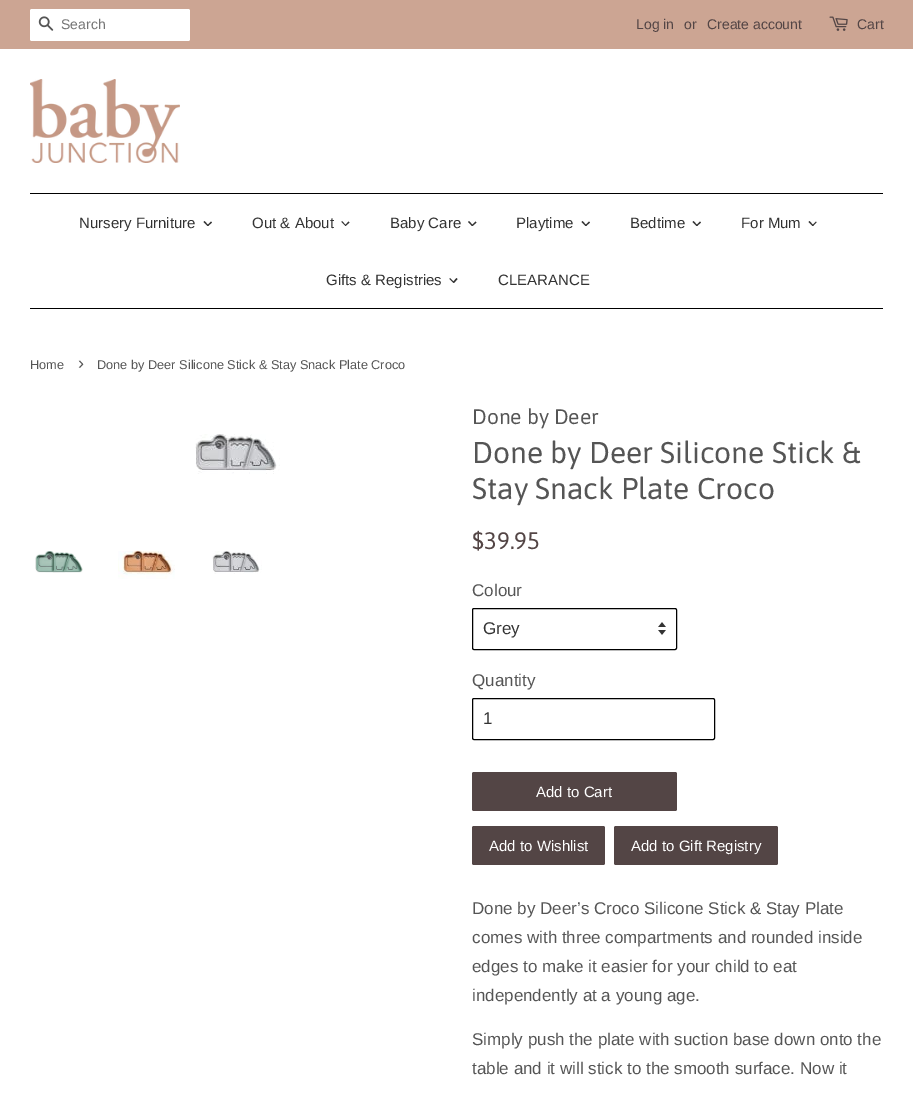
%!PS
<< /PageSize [913 1093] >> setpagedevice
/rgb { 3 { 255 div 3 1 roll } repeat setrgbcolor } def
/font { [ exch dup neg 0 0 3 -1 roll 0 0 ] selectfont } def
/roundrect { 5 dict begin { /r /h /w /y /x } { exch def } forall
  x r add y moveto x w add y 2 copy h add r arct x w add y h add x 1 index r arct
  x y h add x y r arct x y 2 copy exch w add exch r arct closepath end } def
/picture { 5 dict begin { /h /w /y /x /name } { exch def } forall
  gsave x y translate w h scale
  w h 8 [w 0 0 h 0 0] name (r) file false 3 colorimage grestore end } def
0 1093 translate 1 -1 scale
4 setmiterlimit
255 255 255 rgb
0 0 913 1093 rectfill
204 165 147 rgb
0 0 913 49 rectfill
255 255 255 rgb
30 9 160 32 2 roundrect fill
(img/1.rgb) 38 16 16 15 picture
(img/2.rgb) 829 16 19 15 picture
(img/3.rgb) 30 79 150 84 picture
0 0 0 rgb
30 193 853 1 rectfill
30 308 853 1 rectfill
51 51 51 rgb
211 221.5 moveto 212 222.5 lineto 208 226 lineto 207 225.5 lineto closepath fill
204.5 221 moveto 208.5 225.5 lineto 207.5 226 lineto 203.5 222 lineto closepath fill
348.5 221.5 moveto 349.5 222.5 lineto 345.5 226 lineto 345 225.5 lineto closepath fill
342 221 moveto 346 225.5 lineto 345.5 226 lineto 341.5 222 lineto closepath fill
475.5 221.5 moveto 476.5 222.5 lineto 472.5 226 lineto 471.5 225.5 lineto closepath fill
469 221 moveto 473 225.5 lineto 472 226 lineto 468 222 lineto closepath fill
589 221.5 moveto 590 222.5 lineto 586 226 lineto 585 225.5 lineto closepath fill
582.5 221 moveto 586.5 225.5 lineto 585.5 226 lineto 581.5 222 lineto closepath fill
700 221.5 moveto 701 222.5 lineto 697 226 lineto 696 225.5 lineto closepath fill
693.5 221 moveto 697.5 225.5 lineto 696.5 226 lineto 692.5 222 lineto closepath fill
816 221.5 moveto 816.5 222.5 lineto 813 226 lineto 812 225.5 lineto closepath fill
809.5 221 moveto 813.5 225.5 lineto 812.5 226 lineto 808.5 222 lineto closepath fill
456.5 278 moveto 457.5 279 lineto 454 283 lineto 453 282 lineto closepath fill
450 278 moveto 454 282 lineto 453.5 283 lineto 449.5 279 lineto closepath fill
(img/4.rgb) 195 434 85 40 picture
(img/5.rgb) 35 551 48 22 picture
(img/6.rgb) 118 550 57 29 picture
(img/7.rgb) 212 551 50 23 picture
(img/8.rgb) 658 622 8 13 picture
0 0 0 rgb
472.5 608.5 204 41 1.5 roundrect stroke
472.5 698.5 242 41 1.5 roundrect stroke
83 69 69 rgb
472 772 205 39 2 roundrect fill
472 826 133 39 2 roundrect fill
614 826 164 39 2 roundrect fill
/LiberationSans-Regular 14 font
117 117 117 rgb
61 29 moveto (Search) show
83 69 69 rgb
[
  [(Log in) 636 29]
  [(or) 684 29]
  [(Create account) 707 29]
  [(Cart) 857 29]
] { aload pop moveto show } forall
/LiberationSans-Regular 15 font
51 51 51 rgb
[
  [(Nursery Furniture) 79 228]
  [(Out & About) 252 228]
  [(Baby Care) 390 228]
  [(Playtime) 516 228]
  [(Bedtime) 630 228]
  [(For Mum) 741 228]
  [(Gifts & Registries) 326 285]
  [(CLEARANCE) 498 285]
] { aload pop moveto show } forall
/LiberationSans-Regular 12.75 font
85 85 85 rgb
30 369 moveto (Home) show
/LiberationSans-Regular 18 font
78 369 moveto (›) show
/LiberationSans-Regular 12.75 font
97 369 moveto (Done by Deer Silicone Stick & Stay Snack Plate Croco) show
/Asap-Regular 21 font
472 424 moveto (Done by Deer) show
/Asap-Regular 30 font
472 463 moveto (Done by Deer Silicone Stick &) show
472 499 moveto (Stay Snack Plate Croco) show
/Asap-Regular 24 font
83 69 69 rgb
472 549 moveto ($39.95) show
/LiberationSans-Regular 17 font
85 85 85 rgb
472 596 moveto (Colour) show
51 51 51 rgb
483 634 moveto (Grey) show
85 85 85 rgb
472 686 moveto (Quantity) show
51 51 51 rgb
483 724 moveto (1) show
/LiberationSans-Regular 15 font
255 255 255 rgb
[
  [(Add to Cart) 536 797]
  [(Add to Wishlist) 489 851]
  [(Add to Gift Registry) 631 851]
] { aload pop moveto show } forall
/LiberationSans-Regular 17 font
85 85 85 rgb
[
  [(Done by Deer’s Croco Silicone Stick & Stay Plate) 472 914]
  [(comes with three compartments and rounded inside) 472 943]
  [(edges to make it easier for your child to eat) 472 972]
  [(independently at a young age.) 472 1001]
  [(Simply push the plate with suction base down onto the) 472 1045]
  [(table and it will stick to the smooth surface. Now it) 472 1074]
] { aload pop moveto show } forall
showpage
